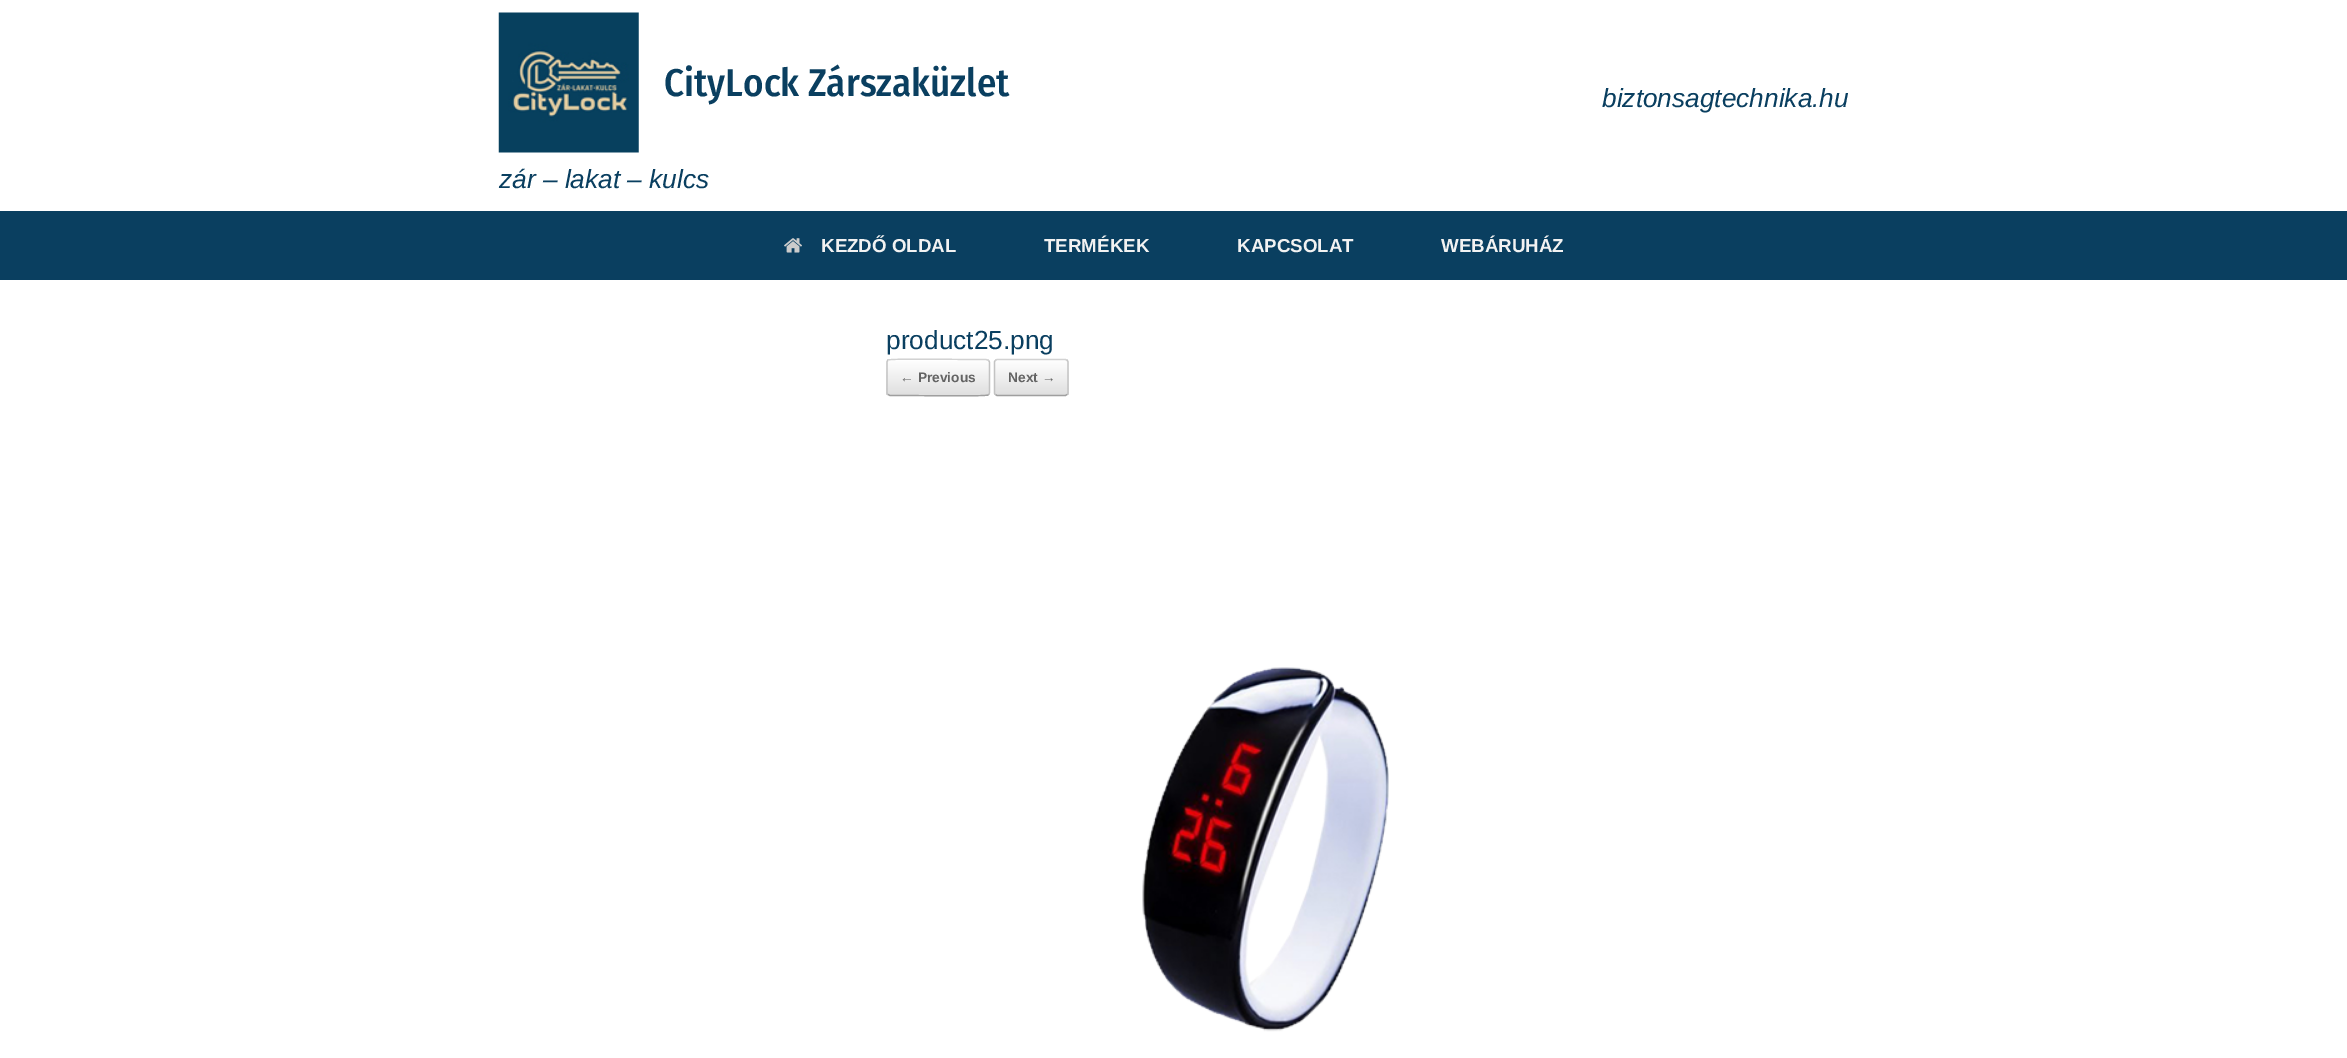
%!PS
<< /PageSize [2347 1058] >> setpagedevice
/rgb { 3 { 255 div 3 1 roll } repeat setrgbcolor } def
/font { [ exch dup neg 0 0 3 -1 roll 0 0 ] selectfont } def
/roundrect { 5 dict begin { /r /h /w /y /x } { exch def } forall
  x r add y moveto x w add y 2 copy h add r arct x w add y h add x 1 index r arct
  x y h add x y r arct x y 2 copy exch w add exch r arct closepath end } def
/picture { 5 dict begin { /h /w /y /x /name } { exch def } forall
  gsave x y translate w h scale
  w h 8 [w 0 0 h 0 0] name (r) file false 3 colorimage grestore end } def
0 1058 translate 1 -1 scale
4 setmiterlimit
255 255 255 rgb
0 0 2347 1058 rectfill
(img/1.rgb) 498 12 141 141 picture
10 63 96 rgb
0 211 2347 69 rectfill
(img/2.rgb) 784 238 18 15 picture
gsave
886 359 104 37 4 roundrect clip newpath
gsave 886 359 moveto 990 359 lineto 990 360 lineto 886 360 lineto closepath clip newpath
<< /ShadingType 2 /ColorSpace /DeviceRGB /Coords [888 360 888 325] /Extend [true true] /Function << /FunctionType 2 /Domain [0 1] /C0 [0.875 0.875 0.875] /C1 [1 1 1] /N 1 >> >> shfill grestore
gsave 886 360 moveto 990 360 lineto 990 395 lineto 886 395 lineto closepath clip newpath
<< /ShadingType 2 /ColorSpace /DeviceRGB /Coords [888 395 888 360] /Extend [true true] /Function << /FunctionType 2 /Domain [0 1] /C0 [0.875 0.875 0.875] /C1 [1 1 1] /N 1 >> >> shfill grestore
grestore
210 210 210 rgb
1.2 setlinewidth
888 360.5 moveto 888 360 lineto 890 358.5 961.5 359.5 970 359.5 curveto 986 359.5 lineto 988.5 360.5 lineto stroke
195 195 195 rgb
988.5 360.5 moveto 989 361 989.5 361.5 989.5 362.5 curveto 989.5 392.5 lineto 989.5 393.5 989 394 988.5 394.5 curveto stroke
159 159 159 rgb
988.5 394.5 moveto 988 395 lineto 986 396.5 915 395.5 906 395.5 curveto 890 395.5 lineto 888 394.5 lineto stroke
195 195 195 rgb
888 394.5 moveto 887 394 887 393.5 887 392.5 curveto 887 362.5 lineto 887 361.5 887 361 888 360.5 curveto stroke
gsave
994 359 75 37 4 roundrect clip newpath
gsave 994 359 moveto 1069 359 lineto 1069 360 lineto 994 360 lineto closepath clip newpath
<< /ShadingType 2 /ColorSpace /DeviceRGB /Coords [995 360 995 325] /Extend [true true] /Function << /FunctionType 2 /Domain [0 1] /C0 [0.875 0.875 0.875] /C1 [1 1 1] /N 1 >> >> shfill grestore
gsave 994 360 moveto 1069 360 lineto 1069 395 lineto 994 395 lineto closepath clip newpath
<< /ShadingType 2 /ColorSpace /DeviceRGB /Coords [995 395 995 360] /Extend [true true] /Function << /FunctionType 2 /Domain [0 1] /C0 [0.875 0.875 0.875] /C1 [1 1 1] /N 1 >> >> shfill grestore
grestore
210 210 210 rgb
995.5 360.5 moveto 997 359.5 lineto 1065.5 359.5 lineto 1067 360.5 lineto stroke
195 195 195 rgb
1067 360.5 moveto 1068 361 1068 361.5 1068 362.5 curveto 1068 392.5 lineto 1068 393.5 1068 394 1067 394.5 curveto stroke
159 159 159 rgb
1067 394.5 moveto 1065.5 395.5 lineto 997 395.5 lineto 995.5 394.5 lineto stroke
195 195 195 rgb
995.5 394.5 moveto 994.5 394 994.5 393.5 994.5 392.5 curveto 994.5 362.5 lineto 994.5 361.5 994.5 361 995.5 360.5 curveto stroke
(img/3.rgb) 1142 667 247 365 picture
/FiraSansCondensed-Medium 38.75 font
10 63 96 rgb
664 96 moveto (CityLock Zárszaküzlet) show
/LiberationSans-Italic 26.25 font
499 188 moveto (zár – lakat – kulcs) show
1602 107 moveto (biztonsagtechnika.hu) show
/LiberationSans-Bold 18.75 font
242 242 242 rgb
[
  [(KEZDŐ OLDAL) 821 252]
  [(TERMÉKEK) 1044 252]
  [(KAPCSOLAT) 1237 252]
  [(WEBÁRUHÁZ) 1441 252]
] { aload pop moveto show } forall
/LiberationSans-Regular 26.25 font
10 63 96 rgb
886 349 moveto (product25.png) show
/LiberationSans-Bold 13.75 font
100 100 100 rgb
900 382 moveto (← Previous) show
1008 382 moveto (Next →) show
showpage
